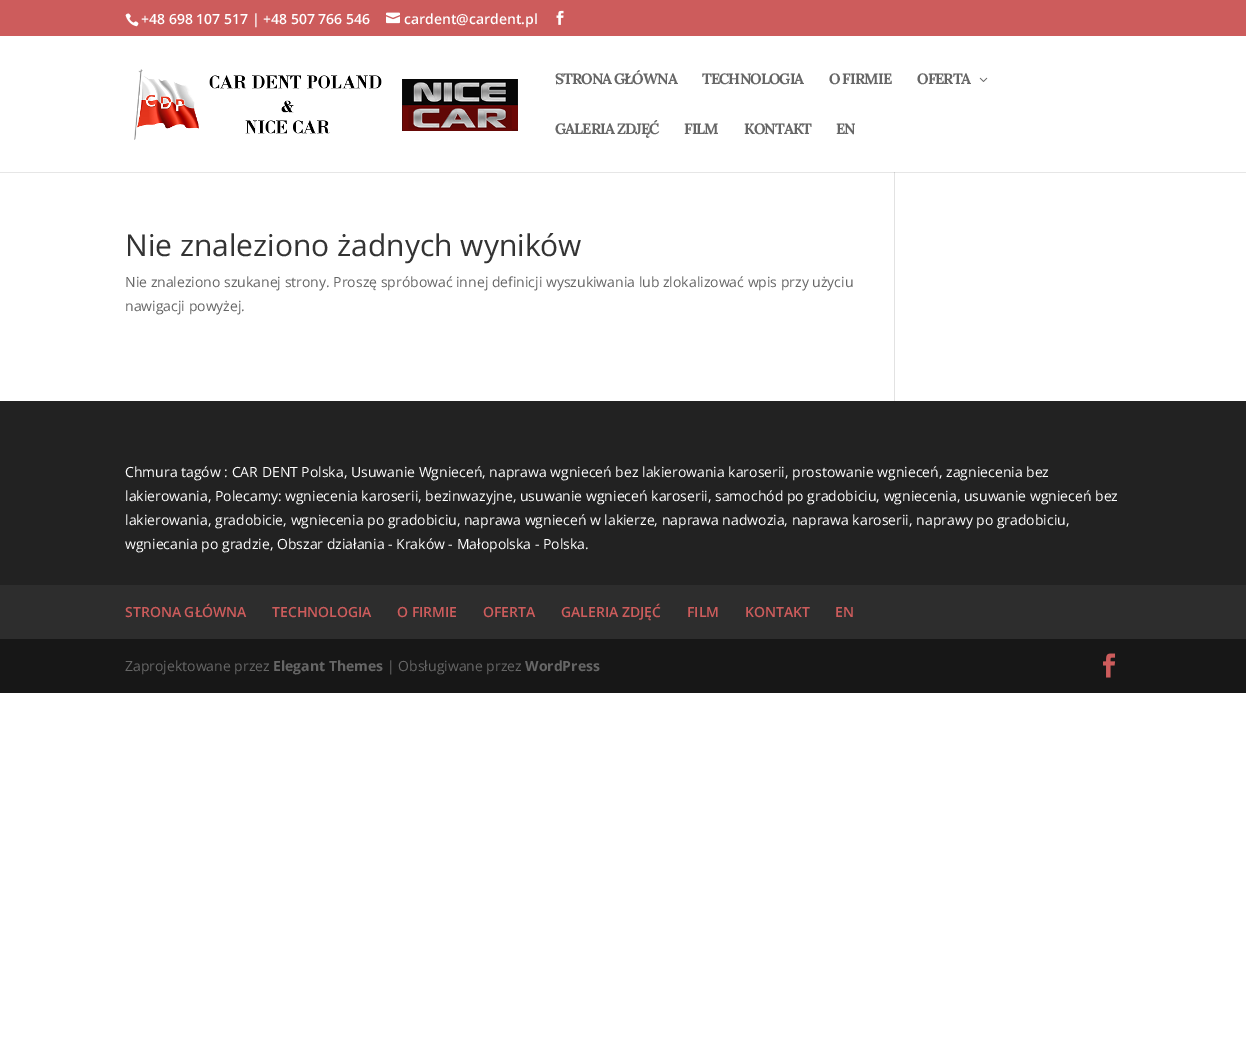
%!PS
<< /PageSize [1246 1059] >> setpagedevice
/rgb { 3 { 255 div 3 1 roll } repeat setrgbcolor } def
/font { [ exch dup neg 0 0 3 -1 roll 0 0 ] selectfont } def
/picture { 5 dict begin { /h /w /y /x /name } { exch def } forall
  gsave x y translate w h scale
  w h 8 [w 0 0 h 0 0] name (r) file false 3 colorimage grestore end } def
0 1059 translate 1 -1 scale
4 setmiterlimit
255 255 255 rgb
0 0 1246 1059 rectfill
230 230 230 rgb
0 172 1246 1 rectfill
205 92 92 rgb
0 0 1246 36 rectfill
(img/1.rgb) 125 13 14 14 picture
(img/2.rgb) 386 12 14 12 picture
(img/3.rgb) 556 10 8 15 picture
(img/4.rgb) 134 69 384 71 picture
(img/5.rgb) 979 77 9 5 picture
[
  [894 172 1 229 226 226 226]
  [894 172 1 1 203 203 203]
  [0 401 1246 184 34 34 34]
  [0 585 1246 54 45 45 45]
  [0 639 1246 54 23 23 23]
] { aload pop rgb rectfill } forall
(img/6.rgb) 1103 653 13 25 picture
/OpenSans-SemiBold 14 font
255 255 255 rgb
141 24 moveto (+48 698 107 517 | +48 507 766 546) show
404 24 moveto (cardent@cardent.pl) show
/Lora-Bold 15 font
102 102 102 rgb
555 84 moveto -1 0 (STRONA GŁÓWNA) ashow
702 84 moveto -1 0 (TECHNOLOGIA) ashow
829 84 moveto -1 0 (O FIRMIE) ashow
917 84 moveto -1 0 (OFERTA) ashow
555 134 moveto -1 0 (GALERIA ZDJĘĆ) ashow
684 134 moveto -1 0 (FILM) ashow
744 134 moveto -1 0 (KONTAKT) ashow
836 134 moveto -1 0 (EN) ashow
/OpenSans-Regular 30 font
51 51 51 rgb
125 256 moveto (Nie znaleziono żadnych wyników) show
/OpenSans-Regular 14 font
102 102 102 rgb
125 287 moveto (Nie znaleziono szukanej strony. Proszę spróbować innej definicji wyszukiwania lub zlokalizować wpis przy użyciu) show
125 311 moveto (nawigacji powyżej.) show
255 255 255 rgb
[
  [(Chmura tagów : CAR DENT Polska, Usuwanie Wgnieceń, naprawa wgnieceń bez lakierowania karoserii, prostowanie wgnieceń, zagniecenia bez) 125 477]
  [(lakierowania, Polecamy: wgniecenia karoserii, bezinwazyjne, usuwanie wgnieceń karoserii, samochód po gradobiciu, wgniecenia, usuwanie wgnieceń bez) 125 501]
  [(lakierowania, gradobicie, wgniecenia po gradobiciu, naprawa wgnieceń w lakierze, naprawa nadwozia, naprawa karoserii, naprawy po gradobiciu,) 125 525]
  [(wgniecania po gradzie, Obszar działania - Kraków - Małopolska - Polska.) 125 549]
] { aload pop moveto show } forall
/OpenSans-SemiBold 14 font
205 92 92 rgb
[
  [(STRONA GŁÓWNA) 125 617]
  [(TECHNOLOGIA) 272 617]
  [(O FIRMIE) 397 617]
  [(OFERTA) 483 617]
  [(GALERIA ZDJĘĆ) 561 617]
  [(FILM) 687 617]
  [(KONTAKT) 745 617]
  [(EN) 835 617]
] { aload pop moveto show } forall
/OpenSans-Regular 14 font
102 102 102 rgb
125 671 moveto (Zaprojektowane przez) show
/OpenSans-Bold 14 font
273 671 moveto (Elegant Themes) show
/OpenSans-Regular 14 font
387 671 moveto (| Obsługiwane przez) show
/OpenSans-Bold 14 font
525 671 moveto (WordPress) show
showpage
